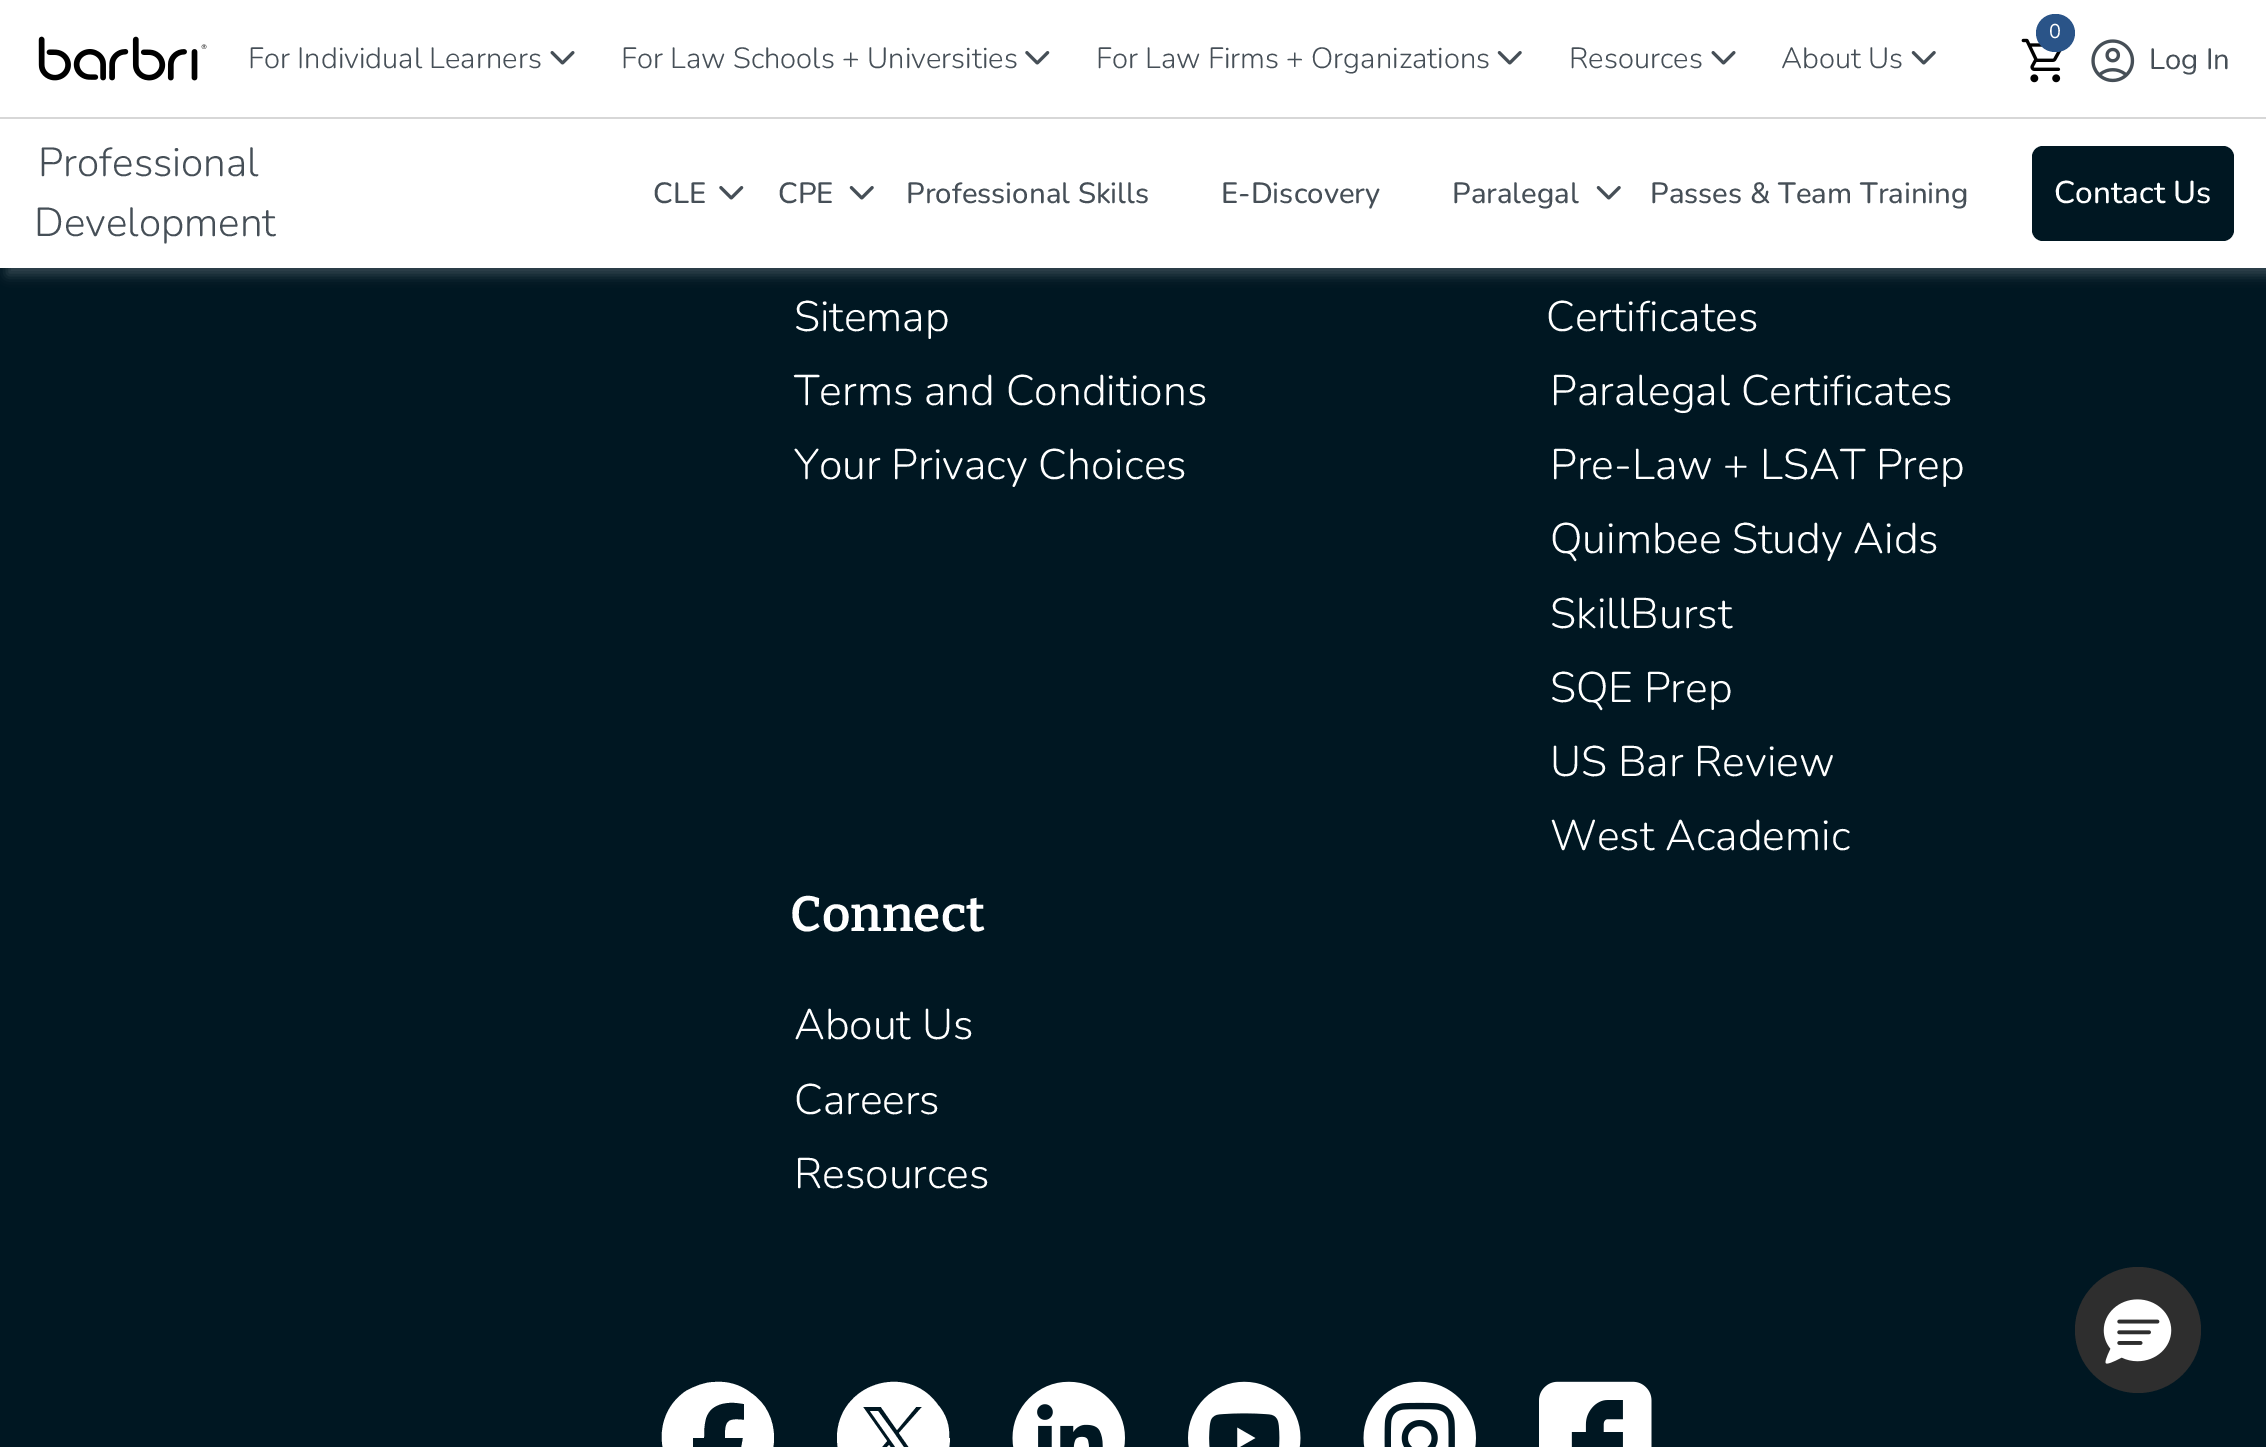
%!PS
<< /PageSize [2266 1447] /PageUsesTransparency true >> setpagedevice
/rgb { 3 { 255 div 3 1 roll } repeat setrgbcolor } def
/font { [ exch dup neg 0 0 3 -1 roll 0 0 ] selectfont } def
/alpha { dup .setfillconstantalpha .setstrokeconstantalpha } def
/circle { newpath 0 360 arc closepath } def
/roundrect { 5 dict begin { /r /h /w /y /x } { exch def } forall
  x r add y moveto x w add y 2 copy h add r arct x w add y h add x 1 index r arct
  x y h add x y r arct x y 2 copy exch w add exch r arct closepath end } def
/shadow { 12 dict begin { /a /b /q /h /w /y /x } { exch def } forall gsave /was 0 def
  9 -2 -9 { dup b mul 4 div /e exch def 1 sub .425 mul 2.718 exch exp 1 add a .99 .min exch div /now exch def
    1 1 now sub 1 was sub div sub alpha /was now def
    w h .min e 2 mul add 0 gt { x e sub y e sub w e 2 mul add h e 2 mul add
      q e add b .6 mul add w h .min 2 div e add .min 0 .max roundrect fill } if } for grestore end } def
/picture { 5 dict begin { /h /w /y /x /name } { exch def } forall
  gsave x y translate w h scale
  w h 8 [w 0 0 h 0 0] name (r) file false 3 colorimage grestore end } def
0 .pushpdf14devicefilter
0 1447 translate 1 -1 scale
4 setmiterlimit
0 23 34 rgb
0 0 2266 1447 rectfill
140 150 158 rgb
7 7 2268 268 0 5.5 0.35 shadow
255 255 255 rgb
0 0 2266 268 rectfill
215 215 215 rgb
0 117 2266 2 rectfill
(img/1.rgb) 38 36 169 45 picture
(img/2.rgb) 550 51 25 14 picture
(img/3.rgb) 1025 51 25 14 picture
(img/4.rgb) 1497 51 25 14 picture
(img/2.rgb) 1711 51 25 14 picture
(img/4.rgb) 1911 51 25 14 picture
(img/5.rgb) 2021 38 41 45 picture
42 84 136 rgb
2036 14 39 38 19 roundrect fill
(img/6.rgb) 2091 39 44 44 picture
(img/3.rgb) 719 186 25 14 picture
(img/4.rgb) 849 186 25 14 picture
(img/4.rgb) 1596 186 25 14 picture
0 23 34 rgb
2032 146 202 95 11 roundrect fill
255 255 255 rgb
774 1438 moveto 774 1420 766 1403 751 1393 curveto 741 1385 728 1381 715 1382 curveto 705 1382 695 1386 686 1391 curveto 646 1418 658 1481 704 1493 curveto 704 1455 lineto 693 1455 lineto 693 1438 lineto 704 1438 lineto 704 1431 704 1425 706 1418 curveto 711 1402 730 1401 744 1404 curveto 744 1420 lineto 727 1418 725 1421 725 1438 curveto 743 1438 lineto 740 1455 lineto 725 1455 lineto 725 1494 lineto 752 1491 774 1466 774 1438 curveto closepath fill
894 1433 moveto 878 1411 lineto 870 1411 lineto 908 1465 lineto 916 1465 lineto closepath 949 1438 moveto 950 1426 946 1414 938 1405 curveto 907 1361 837 1384 837 1438 curveto 837 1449 840 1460 846 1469 curveto 877 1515 949 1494 950 1438 curveto closepath 905 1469 moveto 889 1445 lineto 868 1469 lineto 863 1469 lineto 887 1441 lineto 863 1407 lineto 881 1407 lineto 897 1430 lineto 916 1407 lineto 922 1407 lineto 899 1433 lineto 924 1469 lineto closepath fill
(img/7.rgb) 1012 1381 113 66 picture
(img/8.rgb) 1188 1381 113 66 picture
(img/9.rgb) 1363 1381 113 66 picture
(img/10.rgb) 1539 1381 113 66 picture
46 46 46 rgb
2138 1330 63 circle fill
(img/11.rgb) 2103 1299 69 65 picture
/Nunito-Light 29.25 font
70 79 87 rgb
[
  [(For Individual Learners) 248 68]
  [(For Law Schools + Universities) 621 68]
  [(For Law Firms + Organizations) 1096 68]
  [(Resources) 1569 68]
  [(About Us) 1781 68]
] { aload pop moveto show } forall
/Nunito-Regular 20 font
255 255 255 rgb
2049 38 moveto (0) show
/Nunito-Regular 29.25 font
70 79 87 rgb
2149 69 moveto (Log In) show
/Nunito-Light 40.5 font
38 176 moveto (Professional) show
34 236 moveto (Development) show
/Nunito-Medium 29.25 font
[
  [(CLE) 653 203]
  [(CPE) 778 203]
  [(Professional Skills) 906 203]
  [(E-Discovery) 1221 203]
  [(Paralegal) 1452 203]
  [(Passes & Team Training) 1650 203]
] { aload pop moveto show } forall
/Nunito-Medium 31.5 font
255 255 255 rgb
2054 203 moveto (Contact Us) show
/Nunito-Light 42.75 font
[
  [(Sitemap) 794 331]
  [(Terms and Conditions) 794 405]
  [(Your Privacy Choices) 794 479]
  [(Certificates) 1546 331]
  [(Paralegal Certificates) 1550 405]
  [(Pre-Law + LSAT Prep) 1550 479]
  [(Quimbee Study Aids) 1550 553]
  [(SkillBurst) 1550 628]
  [(SQE Prep) 1550 702]
  [(US Bar Review) 1550 776]
  [(West Academic) 1550 850]
] { aload pop moveto show } forall
/Bitter-SemiBold 49.5 font
790 931 moveto (Connect) show
/Nunito-Light 42.75 font
[
  [(About Us) 794 1039]
  [(Careers) 794 1114]
  [(Resources) 794 1188]
] { aload pop moveto show } forall
.poppdf14devicefilter showpage
